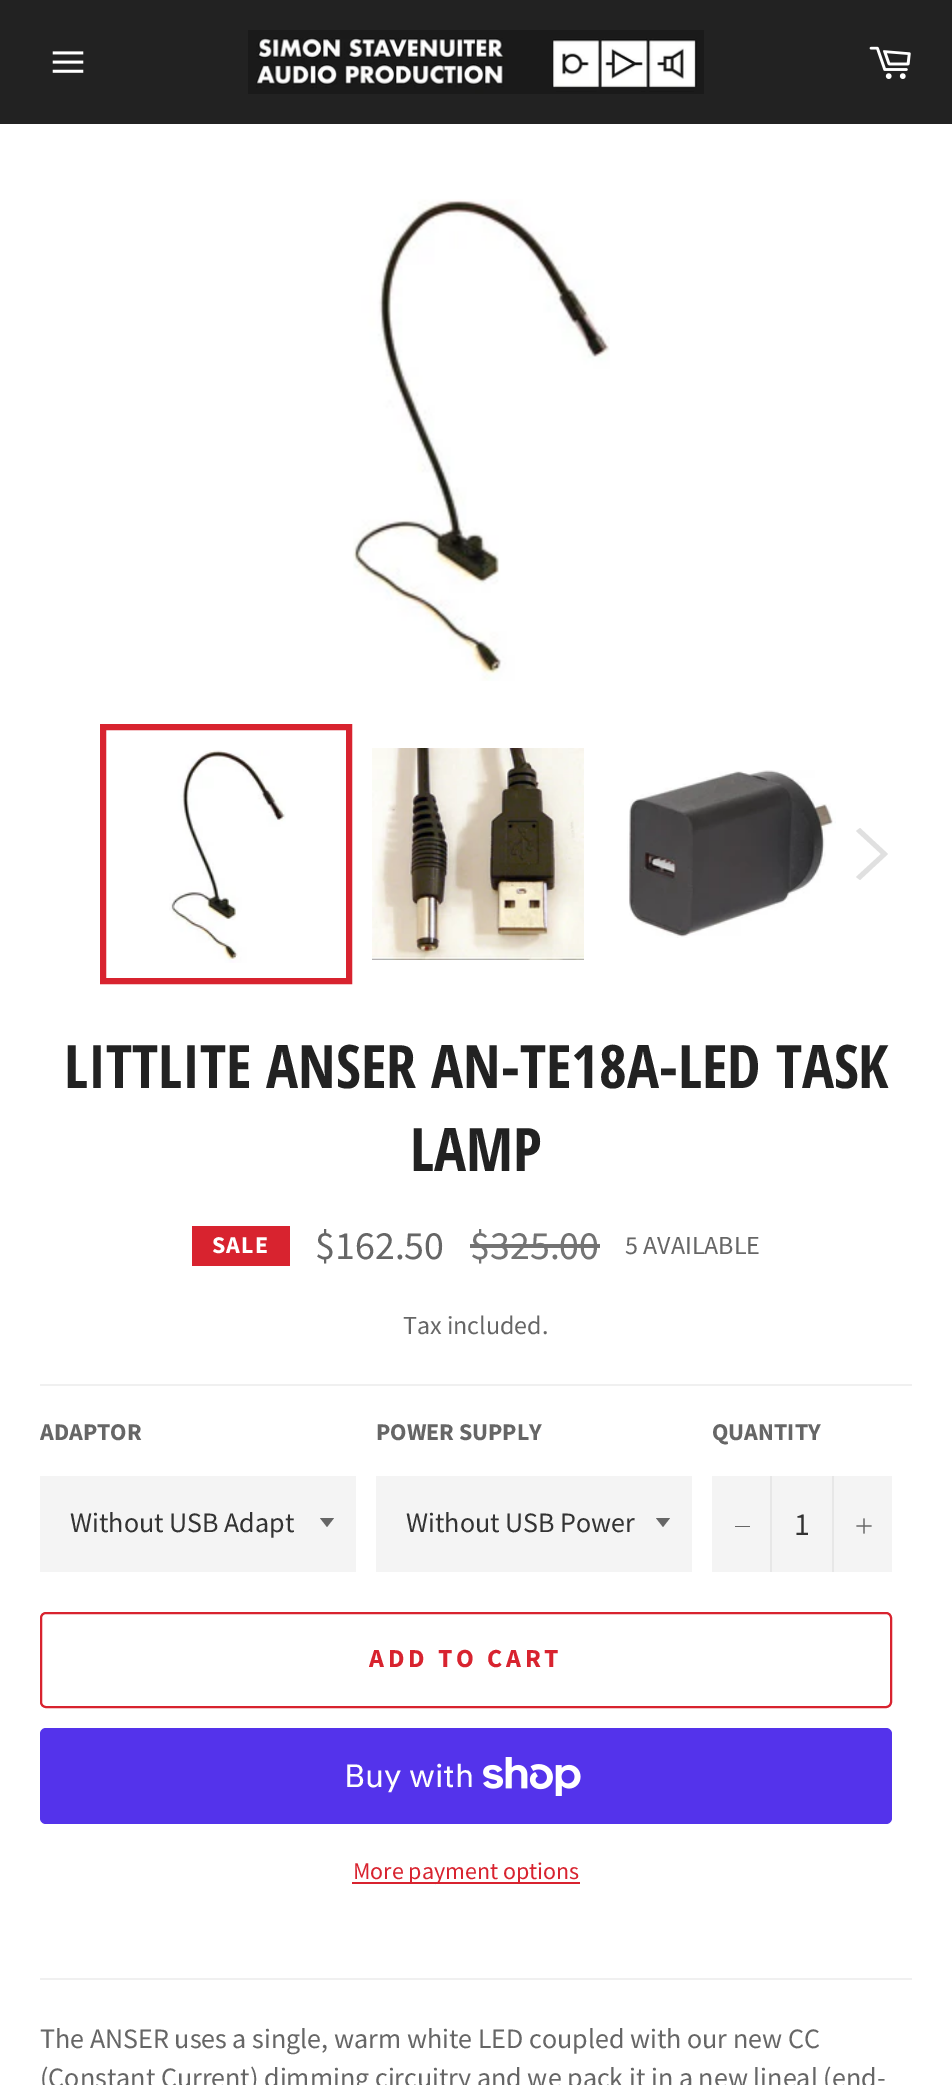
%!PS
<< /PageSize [952 2085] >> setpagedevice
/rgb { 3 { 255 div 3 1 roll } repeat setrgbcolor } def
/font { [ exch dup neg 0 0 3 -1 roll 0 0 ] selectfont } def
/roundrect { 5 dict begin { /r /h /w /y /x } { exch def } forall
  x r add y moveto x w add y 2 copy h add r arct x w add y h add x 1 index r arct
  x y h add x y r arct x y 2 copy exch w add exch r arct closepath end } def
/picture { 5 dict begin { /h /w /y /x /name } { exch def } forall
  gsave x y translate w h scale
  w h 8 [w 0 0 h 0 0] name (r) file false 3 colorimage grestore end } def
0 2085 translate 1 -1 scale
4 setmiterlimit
34 34 34 rgb
0 0 952 2085 rectfill
(img/1.rgb) 52 51 32 22 picture
(img/2.rgb) 248 30 456 64 picture
(img/3.rgb) 869 46 42 33 picture
255 255 255 rgb
0 124 952 1961 rectfill
(img/4.rgb) 353 199 257 482 picture
(img/5.rgb) 169 750 117 213 picture
216 35 47 rgb
6 setlinewidth
103 727 246 254 rectstroke
(img/6.rgb) 372 748 212 212 picture
(img/7.rgb) 627 770 209 168 picture
224 224 224 rgb
856 831 moveto 860 828 lineto 888 854 lineto 860 880 lineto 856 877 lineto 881 854 lineto closepath fill
[
  [192 1226 98 40 216 35 47]
  [470 1244 130 4 115 115 115]
  [40 1384 872 2 240 240 240]
  [40 1476 316 96 244 244 244]
] { aload pop rgb rectfill } forall
102 102 102 rgb
320 1518 moveto 327 1527 lineto 334 1518 lineto closepath fill
244 244 244 rgb
376 1476 316 96 rectfill
102 102 102 rgb
656 1518 moveto 663 1527 lineto 670 1518 lineto closepath fill
[
  [712 1476 180 96 244 244 244]
  [770 1476 2 96 231 231 231]
  [735 1526 15 1 102 102 102]
  [832 1476 2 96 231 231 231]
] { aload pop rgb rectfill } forall
(img/8.rgb) 856 1518 16 16 picture
216 35 47 rgb
2 setlinewidth
41 1613 850 94 5 roundrect stroke
84 51 235 rgb
40 1728 852 96 6 roundrect fill
(img/9.rgb) 483 1757 98 39 picture
216 35 47 rgb
352 1882 228 2 rectfill
240 240 240 rgb
40 1978 872 2 rectfill
/OpenSansCondensed-Bold 60 font
34 34 34 rgb
64 1088 moveto (LITTLITE ANSER AN-TE18A-LED TASK) show
410 1171 moveto (LAMP) show
/SourceSansPro-Bold 24 font
255 255 255 rgb
212 1253 moveto 1 0 (SALE) ashow
/SourceSansPro-Regular 40 font
102 102 102 rgb
315 1259 moveto ($162.50) show
115 115 115 rgb
470 1259 moveto ($325.00) show
/SourceSansPro-Regular 26 font
102 102 102 rgb
625 1254 moveto (5 AVAILABLE) show
403 1334 moveto (Tax included.) show
/SourceSansPro-Bold 24 font
40 1440 moveto (ADAPTOR) show
/SourceSansPro-Regular 28 font
51 51 51 rgb
70 1532 moveto (Without USB Adapt) show
/SourceSansPro-Bold 24 font
102 102 102 rgb
376 1440 moveto (POWER SUPPLY) show
/SourceSansPro-Regular 28 font
51 51 51 rgb
406 1532 moveto (Without USB Power) show
/SourceSansPro-Bold 24 font
102 102 102 rgb
712 1440 moveto (QUANTITY) show
/SourceSansPro-Regular 32 font
51 51 51 rgb
794 1535 moveto (1) show
/SourceSansPro-Bold 26 font
216 35 47 rgb
369 1667 moveto 3.9 0 (ADD TO CART) ashow
/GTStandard-Regular 32 font
255 255 255 rgb
344 1787 moveto (Buy with) show
/SourceSansPro-Regular 24 font
216 35 47 rgb
353 1879 moveto (More payment options) show
/SourceSansPro-Regular 28 font
102 102 102 rgb
40 2048 moveto (The ANSER uses a single, warm white LED coupled with our new CC) show
40 2087 moveto (\(Constant Current\) dimming circuitry and we pack it in a new lineal \(end-) show
showpage
